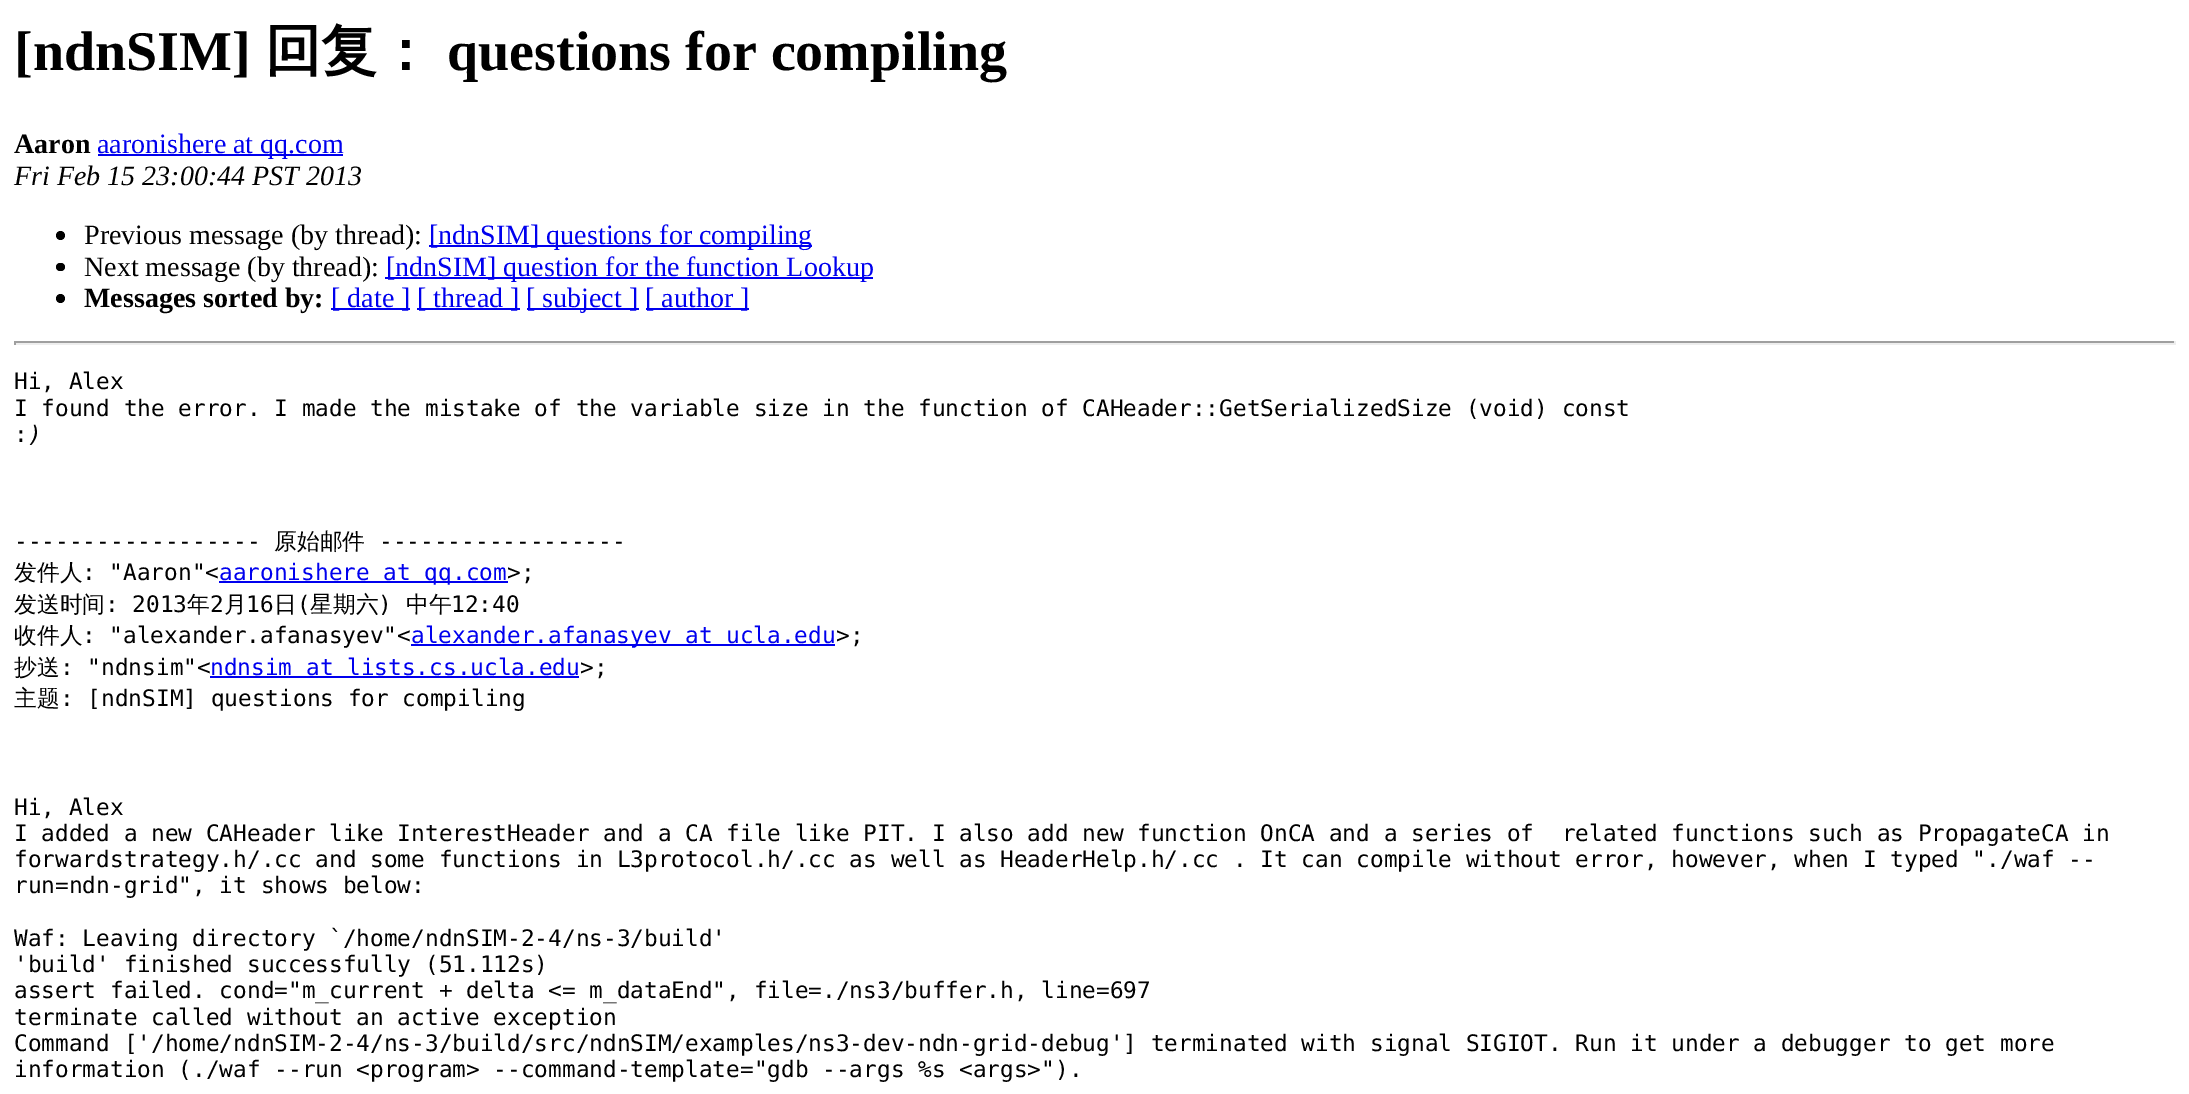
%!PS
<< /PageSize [2189 1094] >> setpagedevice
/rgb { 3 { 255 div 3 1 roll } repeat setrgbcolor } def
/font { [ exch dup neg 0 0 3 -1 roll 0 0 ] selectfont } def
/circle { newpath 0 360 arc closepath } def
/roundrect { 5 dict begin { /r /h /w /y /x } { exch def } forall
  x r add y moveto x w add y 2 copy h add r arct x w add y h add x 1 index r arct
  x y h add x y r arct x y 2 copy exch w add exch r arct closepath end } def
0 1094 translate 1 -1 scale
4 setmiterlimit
255 255 255 rgb
0 0 2189 1094 rectfill
0 0 238 rgb
98 154 245 2 rectfill
0 0 0 rgb
60.5 235.5 4.5 circle fill
0 0 238 rgb
429 245 383 2 rectfill
0 0 0 rgb
56 263 9 8 4 roundrect fill
0 0 238 rgb
385 277 488 2 rectfill
0 0 0 rgb
60.5 298.5 4.5 circle fill
[
  [331 308 79 2 0 0 238]
  [417 308 103 2 0 0 238]
  [527 308 112 2 0 0 238]
  [646 308 103 2 0 0 238]
  [14 341 2161 2 159 159 159]
  [2174 341 2 4 238 238 238]
  [14 343 2161 2 238 238 238]
  [14 341 2 4 159 159 159]
  [219 581 289 2 0 0 238]
  [411 644 424 2 0 0 238]
  [210 676 369 2 0 0 238]
] { aload pop rgb rectfill } forall
/LiberationSerif-Bold 56 font
0 0 0 rgb
14 70 moveto ([ndnSIM]) show
/WenQuanYiZenHei-Bold 56 font
265 70 moveto (回复：) show
/LiberationSerif-Bold 56 font
447 70 moveto (questions for compiling) show
/LiberationSerif-Bold 28 font
14 153 moveto (Aaron) show
/LiberationSerif-Regular 28 font
0 0 238 rgb
97 153 moveto (aaronishere at qq.com) show
/LiberationSerif-Italic 28 font
0 0 0 rgb
14 185 moveto (Fri Feb 15 23:00:44 PST 2013) show
/LiberationSerif-Regular 28 font
84 244 moveto (Previous message \(by thread\):) show
0 0 238 rgb
429 244 moveto ([ndnSIM] questions for compiling) show
0 0 0 rgb
84 276 moveto (Next message \(by thread\):) show
0 0 238 rgb
386 276 moveto ([ndnSIM] question for the function Lookup) show
/LiberationSerif-Bold 28 font
0 0 0 rgb
84 307 moveto (Messages sorted by:) show
/LiberationSerif-Regular 28 font
0 0 238 rgb
[
  [([ date ]) 331 307]
  [([ thread ]) 417 307]
  [([ subject ]) 526 307]
  [([ author ]) 645 307]
] { aload pop moveto show } forall
/DejaVuSansMono-Regular 22.75 font
0 0 0 rgb
[
  [(Hi, Alex) 14 389]
  [(I found the error. I made the mistake of the variable size in the function of CAHeader::GetSerializedSize \(void\) const) 14 416]
  [(:) 14 442]
] { aload pop moveto show } forall
/DejaVuSansMono-Italic 22.75 font
28 442 moveto (\)) show
/DejaVuSansMono-Regular 22.75 font
14 549 moveto (------------------) show
/WenQuanYiZenHei-Medium 22.75 font
274 549 moveto (原始邮件) show
/DejaVuSansMono-Regular 22.75 font
379 549 moveto (------------------) show
/WenQuanYiZenHei-Medium 22.75 font
14 580 moveto (发件人) show
/DejaVuSansMono-Regular 22.75 font
82 580 moveto (: "Aaron"<) show
0 0 238 rgb
219 580 moveto (aaronishere at qq.com) show
0 0 0 rgb
507 580 moveto (>;) show
/WenQuanYiZenHei-Medium 22.75 font
14 612 moveto (发送时间) show
/DejaVuSansMono-Regular 22.75 font
105 612 moveto (: 2013) show
/WenQuanYiZenHei-Medium 22.75 font
187 612 moveto (年) show
/DejaVuSansMono-Regular 22.75 font
210 612 moveto (2) show
/WenQuanYiZenHei-Medium 22.75 font
224 612 moveto (月) show
/DejaVuSansMono-Regular 22.75 font
246 612 moveto (16) show
/WenQuanYiZenHei-Medium 22.75 font
274 612 moveto (日) show
/DejaVuSansMono-Regular 22.75 font
297 612 moveto (\() show
/WenQuanYiZenHei-Medium 22.75 font
310 612 moveto (星期六) show
/DejaVuSansMono-Regular 22.75 font
378 612 moveto (\)) show
/WenQuanYiZenHei-Medium 22.75 font
406 612 moveto (中午) show
/DejaVuSansMono-Regular 22.75 font
451 612 moveto (12:40) show
/WenQuanYiZenHei-Medium 22.75 font
14 643 moveto (收件人) show
/DejaVuSansMono-Regular 22.75 font
82 643 moveto (: "alexander.afanasyev"<) show
0 0 238 rgb
411 643 moveto (alexander.afanasyev at ucla.edu) show
0 0 0 rgb
836 643 moveto (>;) show
/WenQuanYiZenHei-Medium 22.75 font
14 675 moveto (抄送) show
/DejaVuSansMono-Regular 22.75 font
60 675 moveto (: "ndnsim"<) show
0 0 238 rgb
210 675 moveto (ndnsim at lists.cs.ucla.edu) show
0 0 0 rgb
580 675 moveto (>;) show
/WenQuanYiZenHei-Medium 22.75 font
14 706 moveto (主题) show
/DejaVuSansMono-Regular 22.75 font
[
  [(: [ndnSIM] questions for compiling) 60 706]
  [(Hi, Alex) 14 815]
  [(I added a new CAHeader like InterestHeader and a CA file like PIT. I also add new function OnCA and a series of  related functions such as PropagateCA in) 14 841]
  [(forwardstrategy.h/.cc and some functions in L3protocol.h/.cc as well as HeaderHelp.h/.cc . It can compile without error, however, when I typed "./waf --) 14 867]
  [(run=ndn-grid", it shows below:) 14 893]
  [(Waf: Leaving directory `/home/ndnSIM-2-4/ns-3/build') 14 946]
  [('build' finished successfully \(51.112s\)) 14 972]
  [(assert failed. cond="m_current + delta <= m_dataEnd", file=./ns3/buffer.h, line=697) 14 998]
  [(terminate called without an active exception) 14 1025]
  [(Command ['/home/ndnSIM-2-4/ns-3/build/src/ndnSIM/examples/ns3-dev-ndn-grid-debug'] terminated with signal SIGIOT. Run it under a debugger to get more) 14 1051]
  [(information \(./waf --run <program> --command-template="gdb --args %s <args>"\).) 14 1077]
] { aload pop moveto show } forall
showpage
